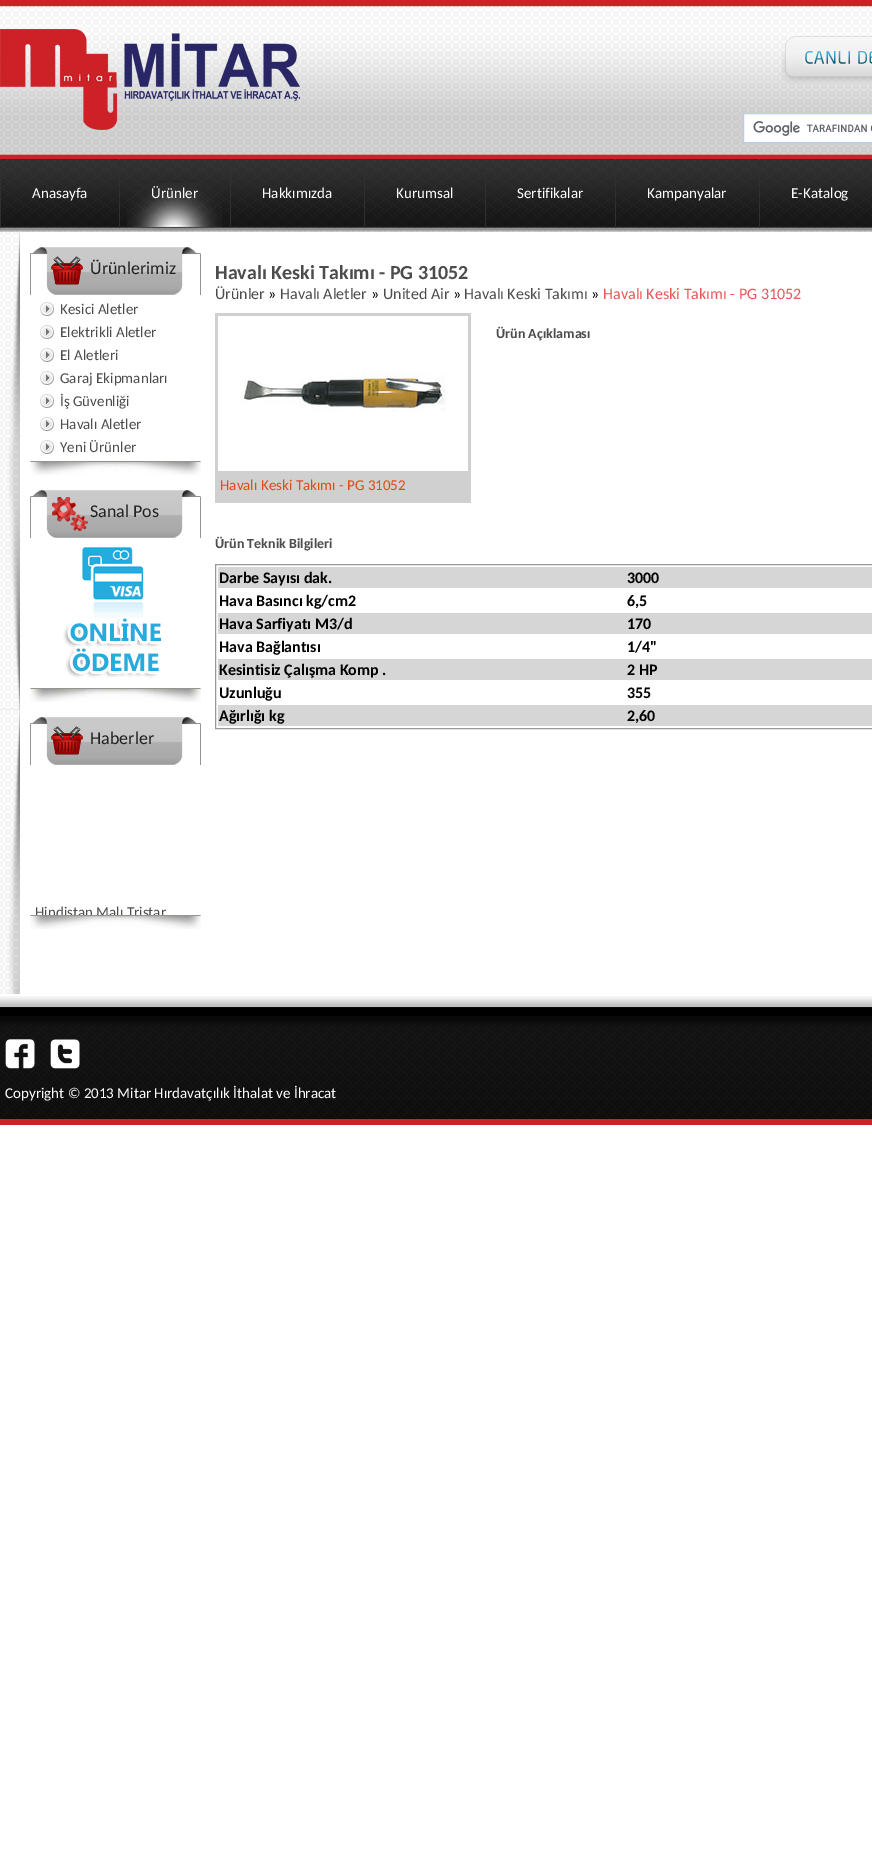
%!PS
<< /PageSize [872 1868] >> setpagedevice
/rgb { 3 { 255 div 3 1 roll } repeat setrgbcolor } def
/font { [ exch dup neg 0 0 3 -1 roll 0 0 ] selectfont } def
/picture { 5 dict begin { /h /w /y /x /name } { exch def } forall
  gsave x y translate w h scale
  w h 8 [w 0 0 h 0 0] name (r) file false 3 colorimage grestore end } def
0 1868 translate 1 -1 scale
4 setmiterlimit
255 255 255 rgb
0 0 872 1868 rectfill
(img/1.rgb) 0 0 872 159 picture
(img/2.rgb) 0 29 300 101 picture
(img/3.rgb) 781 36 91 48 picture
743.5 113.5 moveto 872.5 113.5 lineto 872.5 142.5 lineto 743.5 142.5 lineto closepath gsave fill grestore
188 205 240 rgb
stroke
(img/4.rgb) 753 121 119 15 picture
(img/5.rgb) 0 159 872 73 picture
(img/6.rgb) 0 159 1 69 picture
(img/6.rgb) 119 159 1 69 picture
(img/7.rgb) 127 183 95 44 picture
(img/6.rgb) 230 159 1 69 picture
(img/6.rgb) 364 159 1 69 picture
(img/6.rgb) 485 159 1 69 picture
(img/6.rgb) 615 159 1 69 picture
(img/6.rgb) 759 159 1 69 picture
(img/8.rgb) 0 232 20 762 picture
(img/9.rgb) 0 232 872 762 picture
(img/10.rgb) 30 247 171 48 picture
(img/11.rgb) 40 302 14 14 picture
(img/11.rgb) 40 325 14 14 picture
(img/11.rgb) 40 348 14 14 picture
(img/11.rgb) 40 371 14 14 picture
(img/11.rgb) 40 394 14 14 picture
(img/11.rgb) 40 417 14 14 picture
(img/11.rgb) 40 440 14 14 picture
(img/12.rgb) 30 461 171 14 picture
(img/13.rgb) 30 490 171 48 picture
(img/14.rgb) 63 547 98 131 picture
(img/12.rgb) 30 688 171 14 picture
(img/10.rgb) 30 717 171 48 picture
(img/12.rgb) 30 915 171 14 picture
208 208 208 rgb
215 313 256 190 rectfill
(img/15.rgb) 218 316 250 155 picture
153 153 153 rgb
215.5 564.5 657 164 rectstroke
[
  [218 567 654 21 214 214 214]
  [218 613 654 21 214 214 214]
  [218 659 654 21 214 214 214]
  [218 705 654 21 214 214 214]
] { aload pop rgb rectfill } forall
(img/16.rgb) 0 996 872 129 picture
(img/17.rgb) 5 1039 30 30 picture
(img/18.rgb) 50 1039 30 30 picture
/Carlito-Regular 15 font
255 255 255 rgb
[
  [(Anasayfa) 32 198]
  [(Ürünler) 151 198]
  [(Hakkımızda) 262 198]
  [(Kurumsal) 396 198]
  [(Sertifikalar) 517 198]
  [(Kampanyalar) 647 198]
  [(E-Katalog) 791 198]
] { aload pop moveto show } forall
/Carlito-Regular 18 font
34 34 34 rgb
90 274 moveto (Ürünlerimiz) show
/Carlito-Regular 15 font
76 76 76 rgb
[
  [(Kesici Aletler) 60 314]
  [(Elektrikli Aletler) 60 337]
  [(El Aletleri) 60 360]
  [(Garaj Ekipmanları) 60 383]
  [(İş Güvenliği) 60 406]
  [(Havalı Aletler) 60 429]
  [(Yeni Ürünler) 60 452]
] { aload pop moveto show } forall
/Carlito-Regular 18 font
34 34 34 rgb
90 517 moveto (Sanal Pos) show
90 744 moveto (Haberler) show
gsave
30 765 171 150 rectclip
/Carlito-Regular 15 font
76 76 76 rgb
35 917 moveto (Hindistan Malı Tristar) show
grestore
/Carlito-Bold 20 font
76 76 76 rgb
215 279 moveto (Havalı Keski Takımı - PG 31052) show
/Carlito-Regular 16 font
215 299 moveto (Ürünler) show
0 0 0 rgb
268 299 moveto (») show
76 76 76 rgb
280 299 moveto (Havalı Aletler) show
0 0 0 rgb
371 299 moveto (») show
76 76 76 rgb
383 299 moveto (United Air) show
0 0 0 rgb
453 299 moveto (») show
76 76 76 rgb
464 299 moveto (Havalı Keski Takımı) show
0 0 0 rgb
591 299 moveto (») show
233 86 85 rgb
603 299 moveto (Havalı Keski Takımı - PG 31052) show
/Carlito-Bold 14 font
76 76 76 rgb
496 338 moveto (Ürün Açıklaması) show
/Carlito-Regular 15 font
221 75 25 rgb
220 490 moveto (Havalı Keski Takımı - PG 31052) show
/Carlito-Bold 14 font
76 76 76 rgb
215 548 moveto (Ürün Teknik Bilgileri) show
/Carlito-Bold 16 font
0 0 0 rgb
[
  [(Darbe Sayısı dak.) 219 583]
  [(3000) 627 583]
  [(Hava Basıncı kg/cm2) 219 606]
  [(6,5) 627 606]
  [(Hava Sarfiyatı M3/d) 219 629]
  [(170) 627 629]
  [(Hava Bağlantısı) 219 652]
  [(1/4") 627 652]
  [(Kesintisiz Çalışma Komp .) 219 675]
  [(2 HP) 627 675]
  [(Uzunluğu) 219 698]
  [(355) 627 698]
  [(Ağırlığı kg) 219 721]
  [(2,60) 627 721]
] { aload pop moveto show } forall
/Carlito-Regular 15 font
255 255 255 rgb
5 1098 moveto (Copyright © 2013 Mitar Hırdavatçılık İthalat ve İhracat) show
showpage
